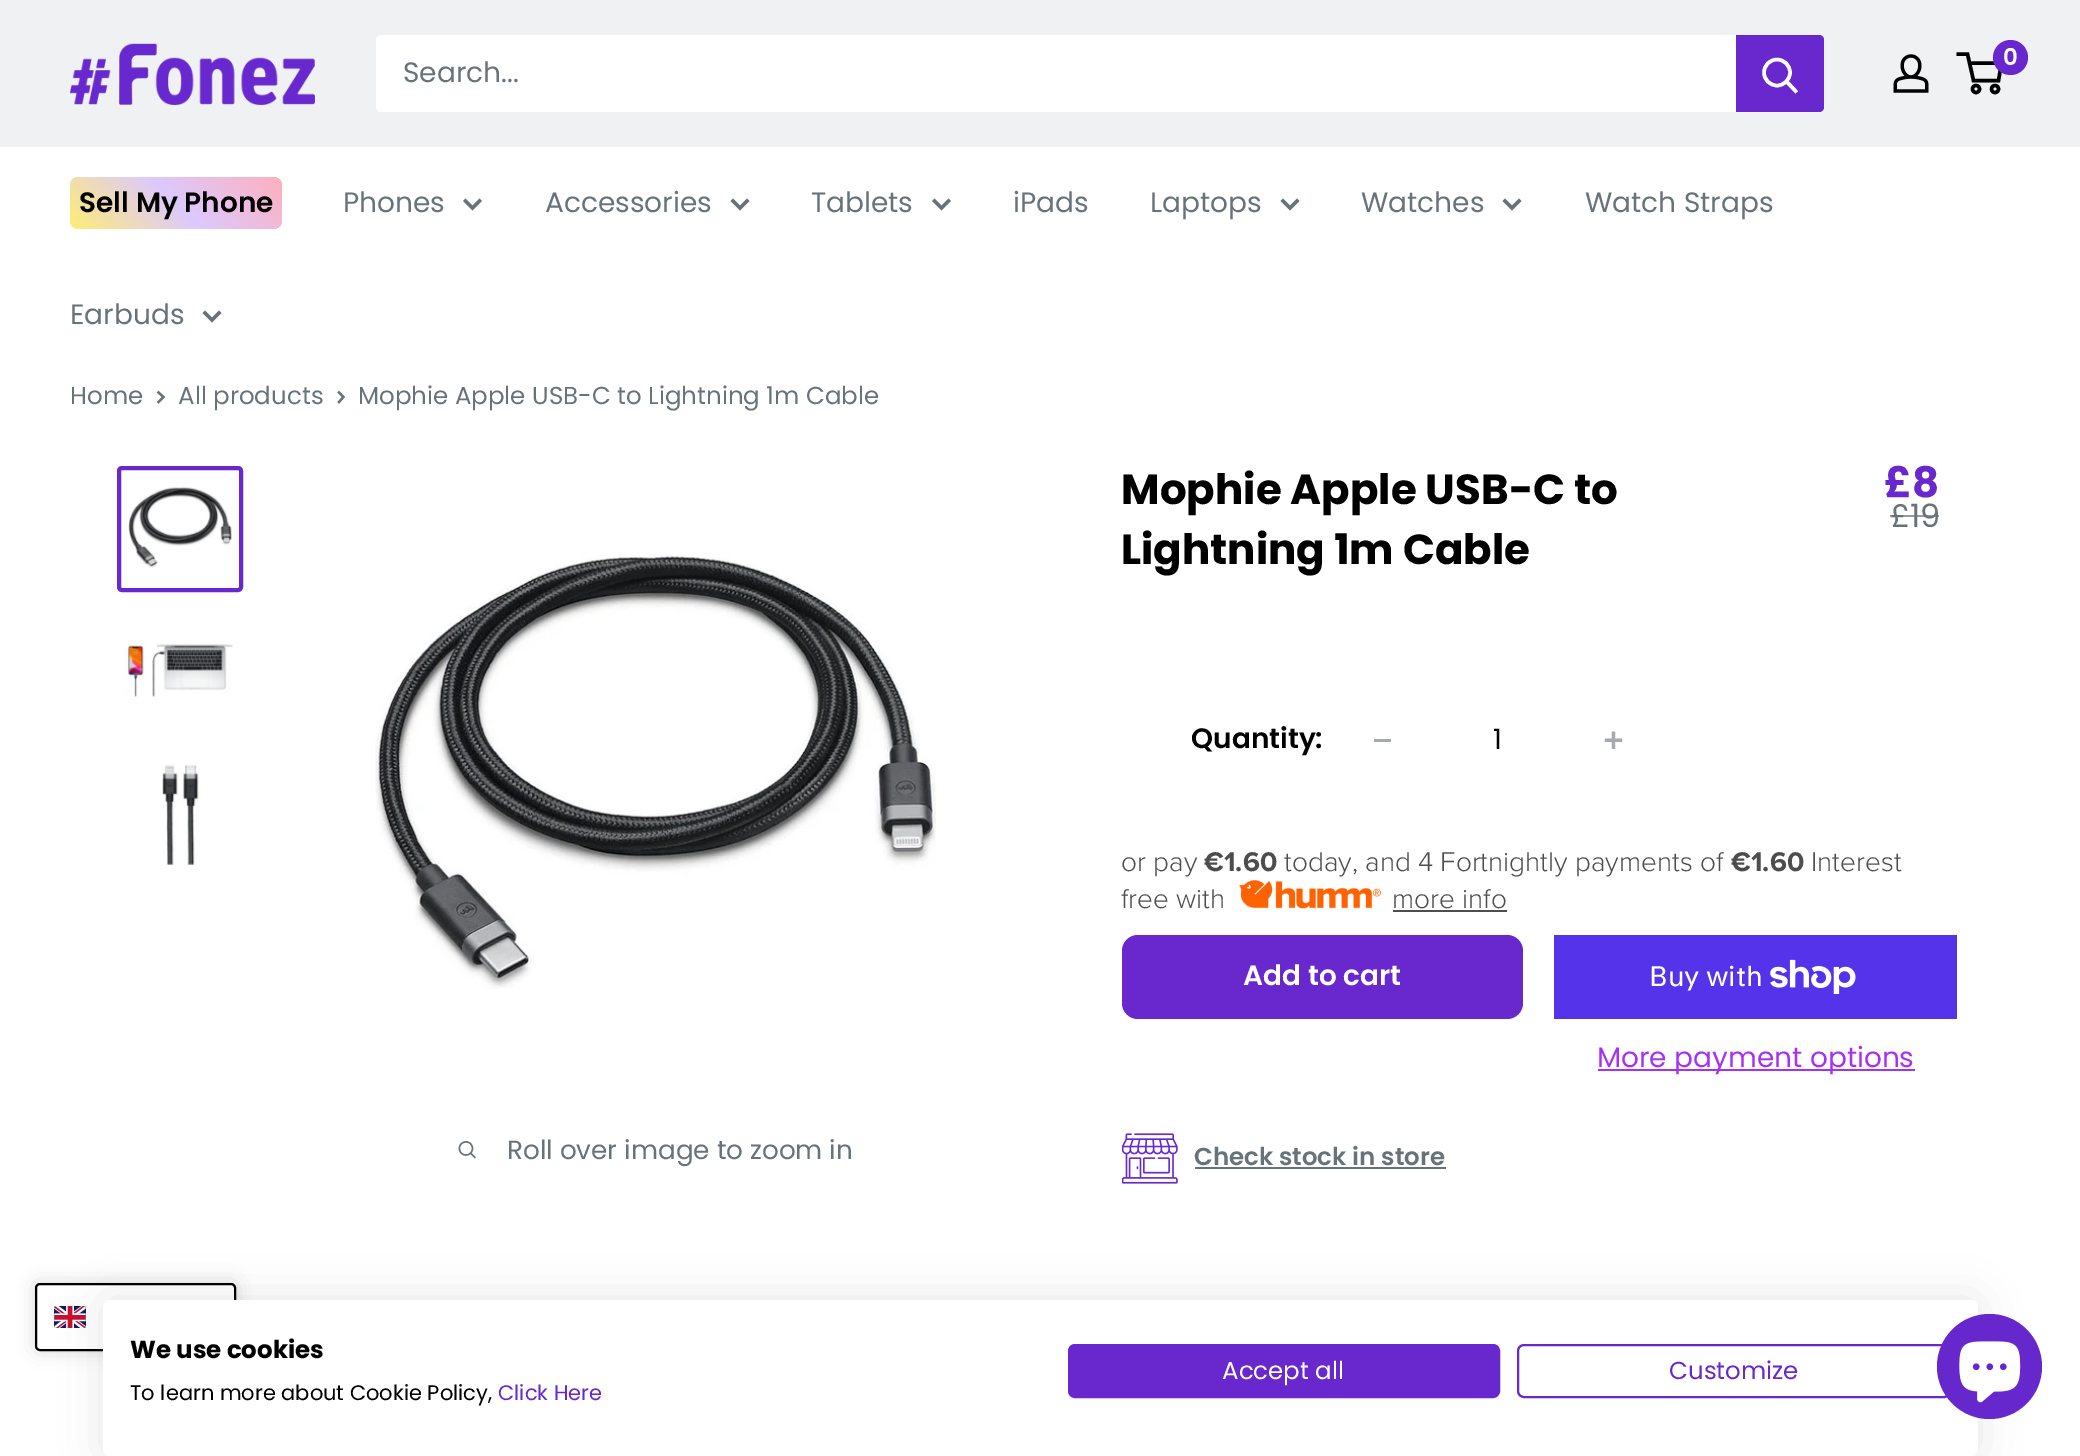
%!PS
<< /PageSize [2080 1456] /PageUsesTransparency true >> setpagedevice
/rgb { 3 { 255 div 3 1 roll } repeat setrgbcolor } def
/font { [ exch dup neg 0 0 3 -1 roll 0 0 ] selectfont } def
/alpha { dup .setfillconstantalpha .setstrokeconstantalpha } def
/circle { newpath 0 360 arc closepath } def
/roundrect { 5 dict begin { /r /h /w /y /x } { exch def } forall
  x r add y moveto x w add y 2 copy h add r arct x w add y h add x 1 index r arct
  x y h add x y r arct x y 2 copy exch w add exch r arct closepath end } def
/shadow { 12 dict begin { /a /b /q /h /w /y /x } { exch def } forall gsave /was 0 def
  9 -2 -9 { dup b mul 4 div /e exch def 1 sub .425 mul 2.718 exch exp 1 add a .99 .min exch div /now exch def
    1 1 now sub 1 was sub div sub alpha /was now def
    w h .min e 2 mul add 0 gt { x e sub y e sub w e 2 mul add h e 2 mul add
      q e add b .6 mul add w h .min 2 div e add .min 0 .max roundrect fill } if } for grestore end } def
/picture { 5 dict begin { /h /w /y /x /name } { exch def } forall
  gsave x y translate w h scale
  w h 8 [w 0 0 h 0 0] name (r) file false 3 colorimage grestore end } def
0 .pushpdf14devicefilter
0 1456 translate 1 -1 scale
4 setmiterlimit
255 255 255 rgb
0 0 2080 1456 rectfill
239 241 242 rgb
0 0 2080 147 rectfill
(img/1.rgb) 70 43 245 62 picture
(img/2.rgb) 1893 54 36 39 picture
0 0 0 rgb
3.5 setlinewidth
1976 89 3.5 circle stroke
1995 89 3.5 circle stroke
1969.5 63 moveto 2001.5 63 lineto 1998.5 80.5 lineto 1973.5 80.5 lineto 1967.5 54 lineto 1956.5 54 lineto stroke
104 40 206 rgb
2010.5 57.5 17.5 circle fill
255 255 255 rgb
376 35 1448 77 5 roundrect fill
104 40 206 rgb
1736 35 moveto 1819 35 lineto 1822 35 1824 37 1824 40 curveto 1824 107 lineto 1824 110 1822 112 1819 112 curveto 1736 112 lineto closepath fill
255 255 255 rgb
2 setlinecap
1795.5 91 moveto 1787 82 lineto stroke
0 setlinecap
1777 72.5 13 circle stroke
gsave 70 177 212 52 9 roundrect clip newpath
<< /ShadingType 2 /ColorSpace /DeviceRGB /Coords [110 269 242 137] /Extend [true true] /Function << /FunctionType 3 /Domain [0 1] /Functions [<< /FunctionType 2 /Domain [0 1] /C0 [1 0.929 0.459] /C1 [0.867 0.788 0.996] /N 1 >> << /FunctionType 2 /Domain [0 1] /C0 [0.867 0.788 0.996] /C1 [0.996 0.69 0.741] /N 1 >>] /Bounds [0.5] /Encode [0 1 0 1] >> >> shfill grestore
103 114 121 rgb
2 setlinecap
479.5 201 moveto 472.5 208 lineto 465.5 201 lineto stroke
747 201 moveto 740 208 lineto 733 201 lineto stroke
948.5 201 moveto 941.5 208 lineto 934.5 201 lineto stroke
1297 201 moveto 1290 208 lineto 1283 201 lineto stroke
1519 201 moveto 1512 208 lineto 1505 201 lineto stroke
219 313 moveto 212 320 lineto 205 313 lineto stroke
2.3 setlinewidth
158.5 392.5 moveto 163.5 397 lineto 158.5 402 lineto stroke
339 392.5 moveto 343.5 397 lineto 339 402 lineto stroke
104 40 206 rgb
4 setlinewidth
0 setlinecap
119 468 122 122 3 roundrect stroke
(img/3.rgb) 128 487 105 81 picture
(img/4.rgb) 124 642 109 55 picture
(img/5.rgb) 162 764 38 101 picture
(img/6.rgb) 375 554 561 435 picture
(img/7.rgb) 458 1141 18 18 picture
164 170 175 rgb
1374 739 17 3 rectfill
(img/8.rgb) 1604 731 19 18 picture
(img/9.rgb) 1239 880 142 29 picture
77 77 77 rgb
1393 910 114 2 rectfill
104 40 206 rgb
1122 935 401 84 16 roundrect fill
84 51 235 rgb
1554 935 403 84 rectfill
(img/10.rgb) 1770 959 86 35 picture
167 48 245 rgb
1598 1069 317 2 rectfill
(img/11.rgb) 1122 1133 56 51 picture
103 114 121 rgb
1195 1167 251 2 rectfill
0 0 0 rgb
35 1283 201 68 5 9 0.15 shadow
255 255 255 rgb
36 1284 199 66 4 roundrect gsave fill grestore
0 0 0 rgb
2 setlinewidth
stroke
(img/12.rgb) 54 1306 32 22 picture
103 1300 1875 156 7 21 0.1 shadow
255 255 255 rgb
103 1300 1875 156 7 roundrect fill
104 40 206 rgb
1518 1345 432 52 6 roundrect stroke
102 40 205 rgb
1989.5 1366.5 52.5 circle fill
(img/13.rgb) 1959 1341 62 62 picture
104 40 206 rgb
1069 1345 430 52 6 roundrect gsave fill grestore
stroke
/Poppins-SemiBold 23 font
255 255 255 rgb
2003 65 moveto (0) show
/Poppins-Regular 28 font
103 114 121 rgb
403 82 moveto (Search...) show
/Poppins-SemiBold 28 font
0 0 0 rgb
79 212 moveto (Sell My Phone) show
/Poppins-Regular 28 font
103 114 121 rgb
[
  [(Phones) 343 212]
  [(Accessories) 545 212]
  [(Tablets) 811 212]
  [(iPads) 1013 212]
  [(Laptops) 1150 212]
  [(Watches) 1361 212]
  [(Watch Straps) 1585 212]
  [(Earbuds) 70 324]
] { aload pop moveto show } forall
/Poppins-Regular 24.5 font
[
  [(Home) 70 404]
  [(All products) 178 404]
  [(Mophie Apple USB-C to Lightning 1m Cable) 358 404]
] { aload pop moveto show } forall
/Poppins-Regular 26.25 font
507 1159 moveto (Roll over image to zoom in) show
/Poppins-Bold 42 font
0 0 0 rgb
1121 504 moveto (Mophie Apple USB-C to) show
1121 564 moveto (Lightning 1m Cable) show
104 40 206 rgb
1884 497 moveto (£8) show
/Poppins-Regular 32 font
103 114 121 rgb
1890 527 moveto (£19) show
0.7 alpha
1890 515 49 2 rectfill
/Poppins-SemiBold 28 font
1 alpha
0 0 0 rgb
1191 748 moveto (Quantity:) show
/Poppins-Regular 28 font
1493 749 moveto (1) show
/ProximaNova-Light 28 font
77 77 77 rgb
1121 871 moveto (or pay) show
/ProximaNova-Bold 28 font
1204 871 moveto (€1.60) show
/ProximaNova-Light 28 font
1284 871 moveto (today, and 4 Fortnightly payments of) show
/ProximaNova-Bold 28 font
1731 871 moveto (€1.60) show
/ProximaNova-Light 28 font
[
  [(Interest) 1811 871]
  [(free with) 1121 908]
  [(more info) 1392 908]
] { aload pop moveto show } forall
/Poppins-SemiBold 28 font
255 255 255 rgb
1243 985 moveto (Add to cart) show
/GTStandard-Regular 28 font
1649 986 moveto (Buy with) show
/Poppins-Regular 28 font
167 48 245 rgb
1597 1067 moveto (More payment options) show
/Poppins-SemiBold 24.5 font
103 114 121 rgb
1194 1165 moveto (Check stock in store) show
/Poppins-Bold 24.5 font
0 0 0 rgb
130 1358 moveto (We use cookies) show
/Poppins-Regular 21 font
130 1400 moveto (To learn more about Cookie Policy,) show
104 40 206 rgb
498 1400 moveto (Click Here) show
/Poppins-Regular 24.5 font
255 255 255 rgb
1222 1379 moveto (Accept all) show
104 40 206 rgb
1669 1379 moveto (Customize) show
.poppdf14devicefilter showpage
